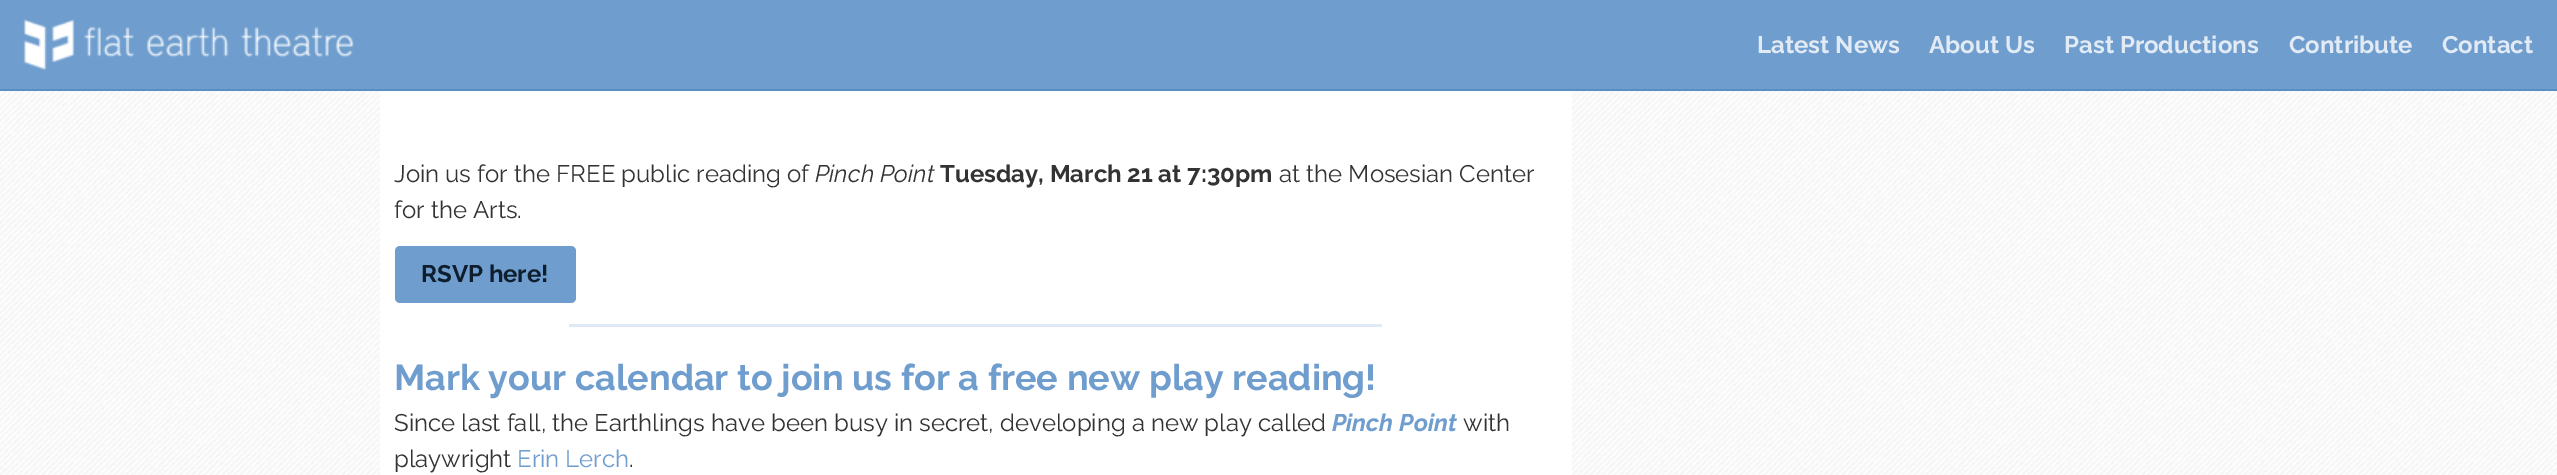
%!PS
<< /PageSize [2557 475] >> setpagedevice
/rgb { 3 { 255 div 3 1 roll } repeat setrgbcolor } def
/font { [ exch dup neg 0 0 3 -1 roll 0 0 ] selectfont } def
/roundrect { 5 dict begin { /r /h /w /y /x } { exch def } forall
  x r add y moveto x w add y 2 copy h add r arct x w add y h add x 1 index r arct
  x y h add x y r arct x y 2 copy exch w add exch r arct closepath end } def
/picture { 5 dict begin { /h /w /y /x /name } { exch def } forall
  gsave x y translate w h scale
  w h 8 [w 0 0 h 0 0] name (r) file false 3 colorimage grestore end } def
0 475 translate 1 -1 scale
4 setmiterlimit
255 255 255 rgb
0 0 2557 475 rectfill
110 157 206 rgb
0 0 2557 89 rectfill
87 142 198 rgb
0 89 2557 2 rectfill
(img/1.rgb) 23 19 331 52 picture
(img/2.rgb) 0 91 2557 384 picture
255 255 255 rgb
380 91 1192 384 rectfill
110 157 206 rgb
395 246 181 57 5 roundrect fill
224 234 245 rgb
569 324 813 3 rectfill
/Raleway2-Thin 24 font
226 235 245 rgb
[
  [(Latest News) 1757 53]
  [(About Us) 1929 53]
  [(Past Productions) 2064 53]
  [(Contribute) 2289 53]
  [(Contact) 2442 53]
] { aload pop moveto show } forall
/Raleway-Thin 24 font
51 51 51 rgb
394 182 moveto (Join us for the FREE public reading of) show
/Raleway-ThinItalic 24 font
815 182 moveto (Pinch Point) show
/Raleway2-Thin 24 font
940 182 moveto (Tuesday, March 21 at 7:30pm) show
/Raleway-Thin 24 font
1279 182 moveto (at the Mosesian Center) show
394 218 moveto (for the Arts.) show
/Raleway2-Thin 24 font
15 30 46 rgb
421 282 moveto (RSVP here!) show
/Raleway2-Thin 36 font
110 157 206 rgb
394 390 moveto (Mark your calendar to join us for a free new play reading!) show
/Raleway-Thin 24 font
51 51 51 rgb
394 431 moveto (Since last fall, the Earthlings have been busy in secret, developing a new play called) show
/Raleway2-ThinItalic 24 font
110 157 206 rgb
1332 431 moveto (Pinch Point) show
/Raleway-Thin 24 font
51 51 51 rgb
1463 431 moveto (with) show
394 467 moveto (playwright) show
110 157 206 rgb
517 467 moveto (Erin Lerch) show
51 51 51 rgb
629 467 moveto (.) show
showpage
